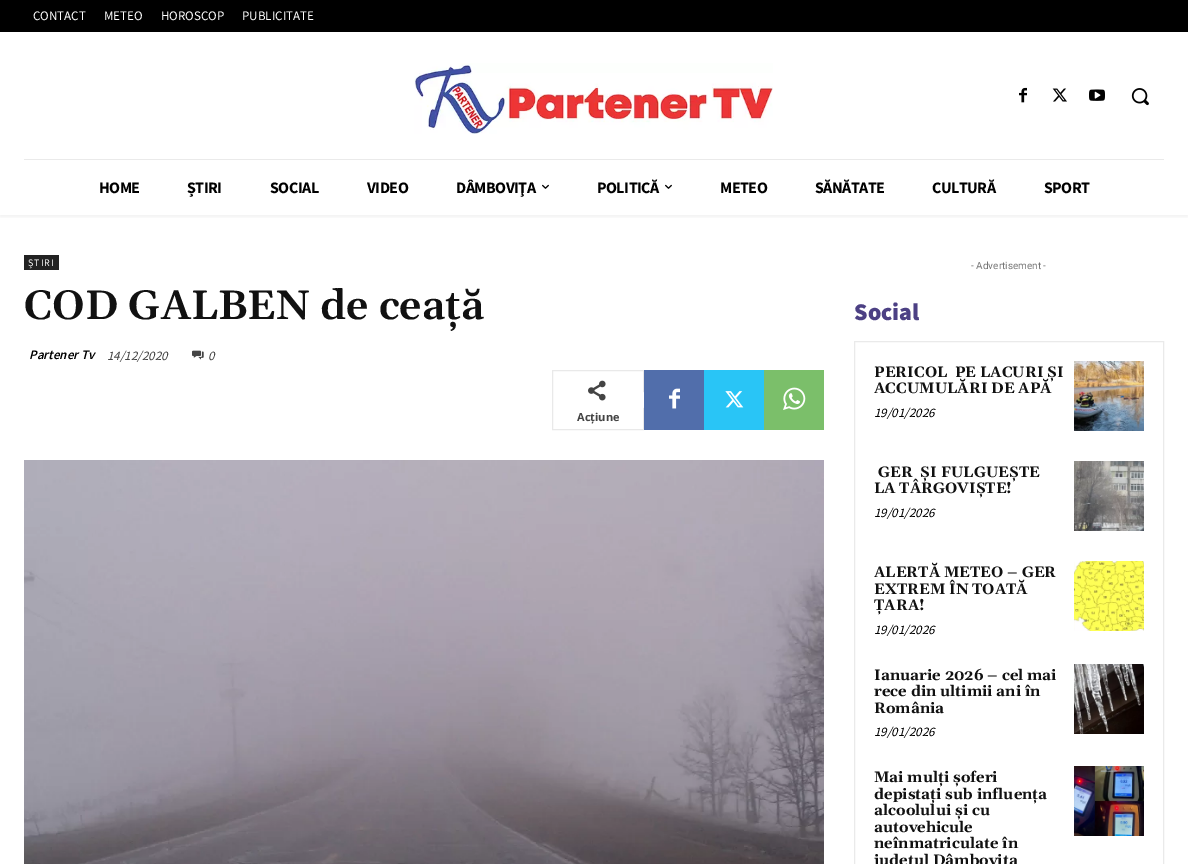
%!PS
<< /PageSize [1188 864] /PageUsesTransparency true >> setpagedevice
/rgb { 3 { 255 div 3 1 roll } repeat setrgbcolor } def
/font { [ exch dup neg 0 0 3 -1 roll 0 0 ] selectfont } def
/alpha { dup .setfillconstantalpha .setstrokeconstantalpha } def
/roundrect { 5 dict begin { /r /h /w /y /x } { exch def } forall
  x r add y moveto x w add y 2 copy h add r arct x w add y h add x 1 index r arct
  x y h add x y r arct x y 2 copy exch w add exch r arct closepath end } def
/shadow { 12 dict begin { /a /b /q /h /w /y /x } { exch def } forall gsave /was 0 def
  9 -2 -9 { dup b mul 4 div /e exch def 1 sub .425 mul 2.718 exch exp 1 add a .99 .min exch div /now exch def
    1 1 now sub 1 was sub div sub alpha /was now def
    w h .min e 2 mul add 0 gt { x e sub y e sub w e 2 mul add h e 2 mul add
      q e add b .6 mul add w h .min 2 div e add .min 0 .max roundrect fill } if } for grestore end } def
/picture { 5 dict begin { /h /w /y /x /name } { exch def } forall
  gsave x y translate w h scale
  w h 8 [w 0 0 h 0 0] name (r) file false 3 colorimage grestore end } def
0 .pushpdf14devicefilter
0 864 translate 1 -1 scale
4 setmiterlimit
255 255 255 rgb
0 0 1188 864 rectfill
0 0 0 rgb
0 0 1188 32 rectfill
(img/1.rgb) 414 63 359 71 picture
(img/2.rgb) 1019 87 8 16 picture
(img/3.rgb) 1052 88 15 14 picture
(img/4.rgb) 1089 89 16 12 picture
(img/5.rgb) 1131 88 18 18 picture
234 234 234 rgb
24 159 1140 1 rectfill
gsave
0 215 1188 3 rectclip
0 0 0 rgb
0 131 1188 86 0 2 0.06 shadow
grestore
(img/6.rgb) 542 184 7 5 picture
(img/6.rgb) 665 184 7 5 picture
34 34 34 rgb
24 255 35 15 rectfill
(img/7.rgb) 192 350 12 10 picture
233 233 233 rgb
552.5 370.5 91 59 rectstroke
(img/8.rgb) 588 380 18 21 picture
643 409 moveto 643 391 lineto 654 400 lineto closepath fill
255 255 255 rgb
643 408 moveto 643 392 lineto 653 400 lineto closepath fill
81 110 171 rgb
644 370 60 60 rectfill
(img/9.rgb) 669 388 11 21 picture
41 197 246 rgb
704 370 60 60 rectfill
(img/10.rgb) 725 391 19 17 picture
123 191 106 rgb
764 370 60 60 rectfill
(img/11.rgb) 783 387 23 23 picture
(img/12.rgb) 24 460 800 404 picture
234 234 234 rgb
854.5 341.5 309 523 rectstroke
(img/13.rgb) 1074 361 70 70 picture
(img/14.rgb) 1074 461 70 70 picture
(img/15.rgb) 1074 561 70 70 picture
(img/16.rgb) 1074 664 70 70 picture
(img/17.rgb) 1074 766 70 70 picture
/SourceSansPro-Regular 13 font
255 255 255 rgb
[
  [(CONTACT) 33 20]
  [(METEO) 104 20]
  [(HOROSCOP) 161 20]
  [(PUBLICITATE) 242 20]
] { aload pop moveto show } forall
/SourceSansPro-Bold 16 font
0 0 0 rgb
99 193 moveto -0.5 0 (HOME) ashow
187 193 moveto -0.5 0 (ȘTIRI) ashow
270 193 moveto -0.5 0 (SOCIAL) ashow
367 193 moveto -0.5 0 (VIDEO) ashow
456 193 moveto -0.5 0 (DÂMBOVIŢA) ashow
597 193 moveto -0.5 0 (POLITICĂ) ashow
720 193 moveto -0.5 0 (METEO) ashow
815 193 moveto -0.5 0 (SĂNĂTATE) ashow
932 193 moveto -0.5 0 (CULTURĂ) ashow
1044 193 moveto -0.5 0 (SPORT) ashow
/SourceSansPro-Regular 10 font
255 255 255 rgb
28 266 moveto 1 0 (ȘTIRI) ashow
/Gelasio-SemiBold 41 font
17 17 17 rgb
24 319 moveto (COD GALBEN de ceață) show
/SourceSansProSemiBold-SemiBoldItalic 13 font
0 0 0 rgb
29 359 moveto (Partener Tv) show
/SourceSansPro-Italic 13 font
68 68 68 rgb
107 360 moveto (14/12/2020) show
208 360 moveto (0) show
/OpenSans-Bold 11 font
577 421 moveto (Acțiune) show
/Roboto-Regular 10 font
118 118 118 rgb
971 269 moveto (- Advertisement -) show
/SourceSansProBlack-Black 24 font
76 64 132 rgb
854 320 moveto (Social) show
/Gelasio-Bold 15 font
17 17 17 rgb
874 377 moveto (PERICOL  PE LACURI ȘI) show
874 393 moveto (ACCUMULĂRI DE APĂ) show
/SourceSansPro-Italic 13 font
0 0 0 rgb
874 417 moveto (19/01/2026) show
/Gelasio-Bold 15 font
17 17 17 rgb
878 477 moveto (GER  ȘI FULGUEȘTE) show
874 493 moveto (LA TÂRGOVIȘTE!) show
/SourceSansPro-Italic 13 font
0 0 0 rgb
874 517 moveto (19/01/2026) show
/Gelasio-Bold 15 font
17 17 17 rgb
[
  [(ALERTĂ METEO – GER) 874 577]
  [(EXTREM ÎN TOATĂ) 874 594]
  [(ȚARA!) 874 610]
] { aload pop moveto show } forall
/SourceSansPro-Italic 13 font
0 0 0 rgb
874 634 moveto (19/01/2026) show
/Gelasio-Bold 15 font
17 17 17 rgb
[
  [(Ianuarie 2026 – cel mai) 874 680]
  [(rece din ultimii ani în) 874 696]
  [(România) 874 713]
] { aload pop moveto show } forall
/SourceSansPro-Italic 13 font
0 0 0 rgb
874 736 moveto (19/01/2026) show
/Gelasio-Bold 15 font
17 17 17 rgb
[
  [(Mai mulți șoferi) 874 782]
  [(depistați sub influența) 874 799]
  [(alcoolului și cu) 874 815]
  [(autovehicule) 874 832]
  [(neînmatriculate în) 874 848]
  [(județul Dâmbovița) 874 865]
] { aload pop moveto show } forall
.poppdf14devicefilter showpage
